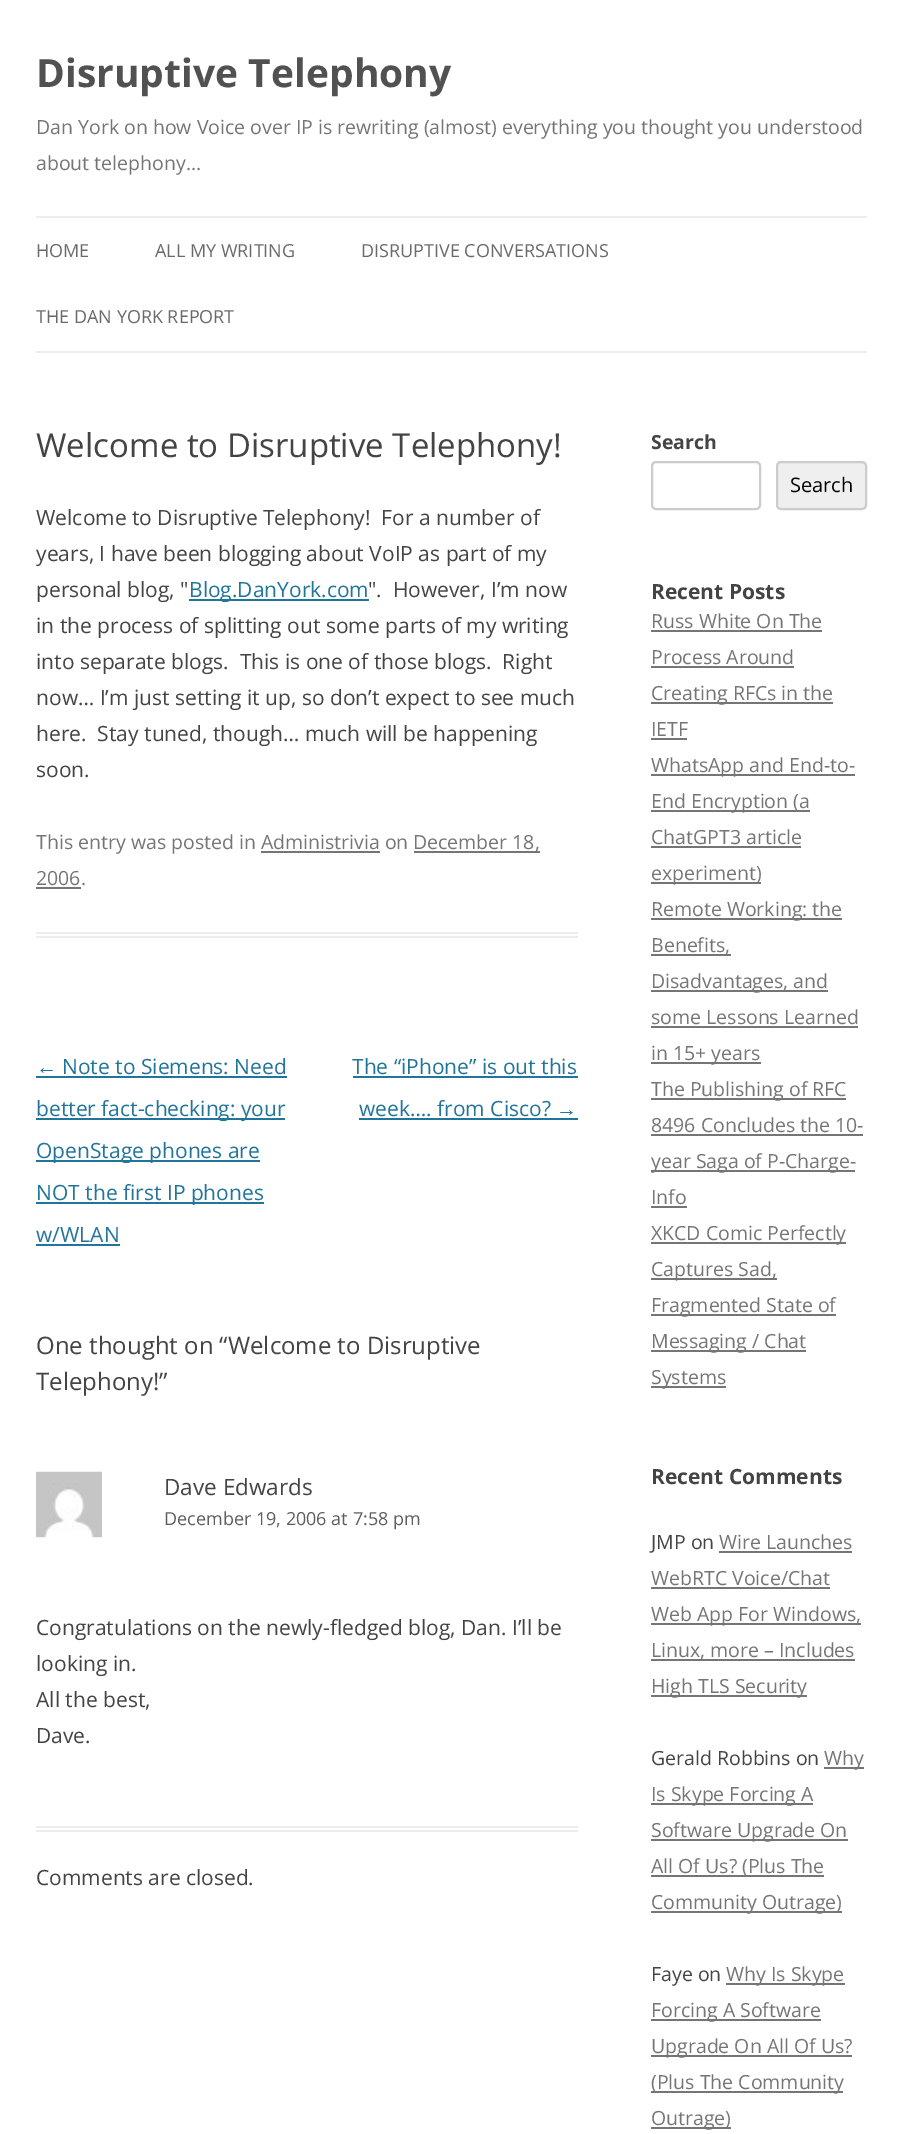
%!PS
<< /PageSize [902 2134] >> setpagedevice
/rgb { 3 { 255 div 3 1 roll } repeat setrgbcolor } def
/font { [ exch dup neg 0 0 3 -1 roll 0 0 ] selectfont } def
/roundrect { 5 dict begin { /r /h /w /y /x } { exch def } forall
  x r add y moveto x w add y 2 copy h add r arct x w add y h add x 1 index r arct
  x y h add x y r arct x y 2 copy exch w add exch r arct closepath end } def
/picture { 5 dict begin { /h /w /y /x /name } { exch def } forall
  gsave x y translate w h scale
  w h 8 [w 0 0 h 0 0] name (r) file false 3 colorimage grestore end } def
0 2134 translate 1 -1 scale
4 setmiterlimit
255 255 255 rgb
0 0 902 2134 rectfill
[
  [36 216 831 2 237 237 237]
  [36 351 831 2 237 237 237]
  [36 932 542 2 237 237 237]
  [36 936 542 2 237 237 237]
  [189 599 180 2 33 117 155]
  [414 851 126 2 117 117 117]
  [261 851 119 2 117 117 117]
  [36 887 45 2 117 117 117]
  [36 1076 251 2 33 117 155]
  [36 1118 249 2 33 117 155]
  [36 1160 224 2 33 117 155]
  [36 1202 228 2 33 117 155]
  [36 1244 84 2 33 117 155]
  [353 1076 225 2 33 117 155]
  [359 1118 219 2 33 117 155]
  [36 1826 542 2 237 237 237]
  [36 1830 542 2 237 237 237]
] { aload pop rgb rectfill } forall
(img/1.rgb) 36 1471 66 67 picture
204 204 204 rgb
2 setlinewidth
652 462 108 47 4 roundrect stroke
239 239 239 rgb
777 462 89 47 4 roundrect gsave fill grestore
204 204 204 rgb
stroke
[
  [651 630 171 2 117 117 117]
  [651 666 143 2 117 117 117]
  [651 702 182 2 117 117 117]
  [651 738 36 2 117 117 117]
  [651 774 204 2 117 117 117]
  [651 810 159 2 117 117 117]
  [651 846 150 2 117 117 117]
  [651 882 110 2 117 117 117]
  [651 918 191 2 117 117 117]
  [651 954 80 2 117 117 117]
  [651 990 177 2 117 117 117]
  [651 1026 207 2 117 117 117]
  [651 1062 110 2 117 117 117]
  [651 1098 195 2 117 117 117]
  [651 1134 212 2 117 117 117]
  [651 1170 204 2 117 117 117]
  [651 1206 36 2 117 117 117]
  [651 1242 195 2 117 117 117]
  [651 1278 126 2 117 117 117]
  [651 1314 185 2 117 117 117]
  [651 1350 155 2 117 117 117]
  [651 1386 75 2 117 117 117]
  [719 1551 133 2 117 117 117]
  [651 1587 179 2 117 117 117]
  [651 1623 210 2 117 117 117]
  [651 1659 204 2 117 117 117]
  [651 1695 156 2 117 117 117]
  [824 1767 40 2 117 117 117]
  [651 1803 162 2 117 117 117]
  [651 1839 197 2 117 117 117]
  [651 1875 173 2 117 117 117]
  [651 1911 191 2 117 117 117]
  [726 1983 119 2 117 117 117]
  [651 2019 170 2 117 117 117]
  [651 2055 201 2 117 117 117]
  [651 2091 192 2 117 117 117]
  [651 2127 80 2 117 117 117]
] { aload pop rgb rectfill } forall
/OpenSans-Bold 39 font
81 81 81 rgb
36 87 moveto (Disruptive Telephony) show
/OpenSans-Regular 19.5 font
117 117 117 rgb
36 134 moveto (Dan York on how Voice over IP is rewriting \(almost\) everything you thought you understood) show
36 170 moveto (about telephony…) show
/OpenSans-Regular 18 font
106 106 106 rgb
[
  [(HOME) 36 257]
  [(ALL MY WRITING) 155 257]
  [(DISRUPTIVE CONVERSATIONS) 361 257]
  [(THE DAN YORK REPORT) 36 323]
] { aload pop moveto show } forall
/OpenSans-Regular 33 font
68 68 68 rgb
36 457 moveto (Welcome to Disruptive Telephony!) show
/OpenSans-Regular 21 font
[
  [(Welcome to Disruptive Telephony!  For a number of) 36 525]
  [(years, I have been blogging about VoIP as part of my) 36 561]
  [(personal blog, ") 36 597]
] { aload pop moveto show } forall
33 117 155 rgb
189 597 moveto (Blog.DanYork.com) show
68 68 68 rgb
[
  [(".  However, I’m now) 368 597]
  [(in the process of splitting out some parts of my writing) 36 633]
  [(into separate blogs.  This is one of those blogs.  Right) 36 669]
  [(now… I’m just setting it up, so don’t expect to see much) 36 705]
  [(here.  Stay tuned, though… much will be happening) 36 741]
  [(soon.) 36 777]
] { aload pop moveto show } forall
/OpenSans-Regular 19.5 font
117 117 117 rgb
[
  [(This entry was posted in Administrivia on) 36 849]
  [(December 18,) 413 849]
  [(2006.) 36 885]
] { aload pop moveto show } forall
/LiberationSans-Regular 21 font
33 117 155 rgb
36 1074 moveto (←) show
/OpenSans-Regular 21 font
[
  [(Note to Siemens: Need) 62 1074]
  [(better fact-checking: your) 36 1116]
  [(OpenStage phones are) 36 1158]
  [(NOT the first IP phones) 36 1200]
  [(w/WLAN) 36 1242]
  [(The “iPhone” is out this) 352 1074]
  [(week…. from Cisco?) 359 1116]
] { aload pop moveto show } forall
/LiberationSans-Regular 21 font
556 1116 moveto (→) show
/OpenSans-Regular 24 font
68 68 68 rgb
36 1354 moveto (One thought on “Welcome to Disruptive) show
36 1390 moveto (Telephony!”) show
/OpenSans-Regular 22.5 font
164 1495 moveto (Dave Edwards) show
/OpenSans-Regular 18 font
94 94 94 rgb
164 1525 moveto (December 19, 2006 at 7:58 pm) show
/OpenSans-Regular 21 font
68 68 68 rgb
[
  [(Congratulations on the newly-fledged blog, Dan. I’ll be) 36 1635]
  [(looking in.) 36 1671]
  [(All the best,) 36 1707]
  [(Dave.) 36 1743]
  [(Comments are closed.) 36 1885]
] { aload pop moveto show } forall
/OpenSans-Bold 19.5 font
651 449 moveto (Search) show
/OpenSans-Regular 20 font
0 0 0 rgb
790 492 moveto (Search) show
/OpenSans-Bold 21 font
68 68 68 rgb
651 599 moveto (Recent Posts) show
/OpenSans-Regular 19.5 font
117 117 117 rgb
[
  [(Russ White On The) 651 628]
  [(Process Around) 651 664]
  [(Creating RFCs in the) 651 700]
  [(IETF) 651 736]
  [(WhatsApp and End-to-) 651 772]
  [(End Encryption \(a) 651 808]
  [(ChatGPT3 article) 651 844]
  [(experiment\)) 651 880]
  [(Remote Working: the) 651 916]
  [(Benefits,) 651 952]
  [(Disadvantages, and) 651 988]
  [(some Lessons Learned) 651 1024]
  [(in 15+ years) 651 1060]
  [(The Publishing of RFC) 651 1096]
  [(8496 Concludes the 10-) 651 1132]
  [(year Saga of P-Charge-) 651 1168]
  [(Info) 651 1204]
  [(XKCD Comic Perfectly) 651 1240]
  [(Captures Sad,) 651 1276]
  [(Fragmented State of) 651 1312]
  [(Messaging / Chat) 651 1348]
  [(Systems) 651 1384]
] { aload pop moveto show } forall
/OpenSans-Bold 21 font
68 68 68 rgb
651 1484 moveto (Recent Comments) show
/OpenSans-Regular 19.5 font
651 1549 moveto (JMP on) show
117 117 117 rgb
[
  [(Wire Launches) 719 1549]
  [(WebRTC Voice/Chat) 651 1585]
  [(Web App For Windows,) 651 1621]
  [(Linux, more – Includes) 651 1657]
  [(High TLS Security) 651 1693]
] { aload pop moveto show } forall
68 68 68 rgb
651 1765 moveto (Gerald Robbins on) show
117 117 117 rgb
[
  [(Why) 824 1765]
  [(Is Skype Forcing A) 651 1801]
  [(Software Upgrade On) 651 1837]
  [(All Of Us? \(Plus The) 651 1873]
  [(Community Outrage\)) 651 1909]
] { aload pop moveto show } forall
68 68 68 rgb
651 1981 moveto (Faye on) show
117 117 117 rgb
[
  [(Why Is Skype) 726 1981]
  [(Forcing A Software) 651 2017]
  [(Upgrade On All Of Us?) 651 2053]
  [(\(Plus The Community) 651 2089]
  [(Outrage\)) 651 2125]
] { aload pop moveto show } forall
showpage
